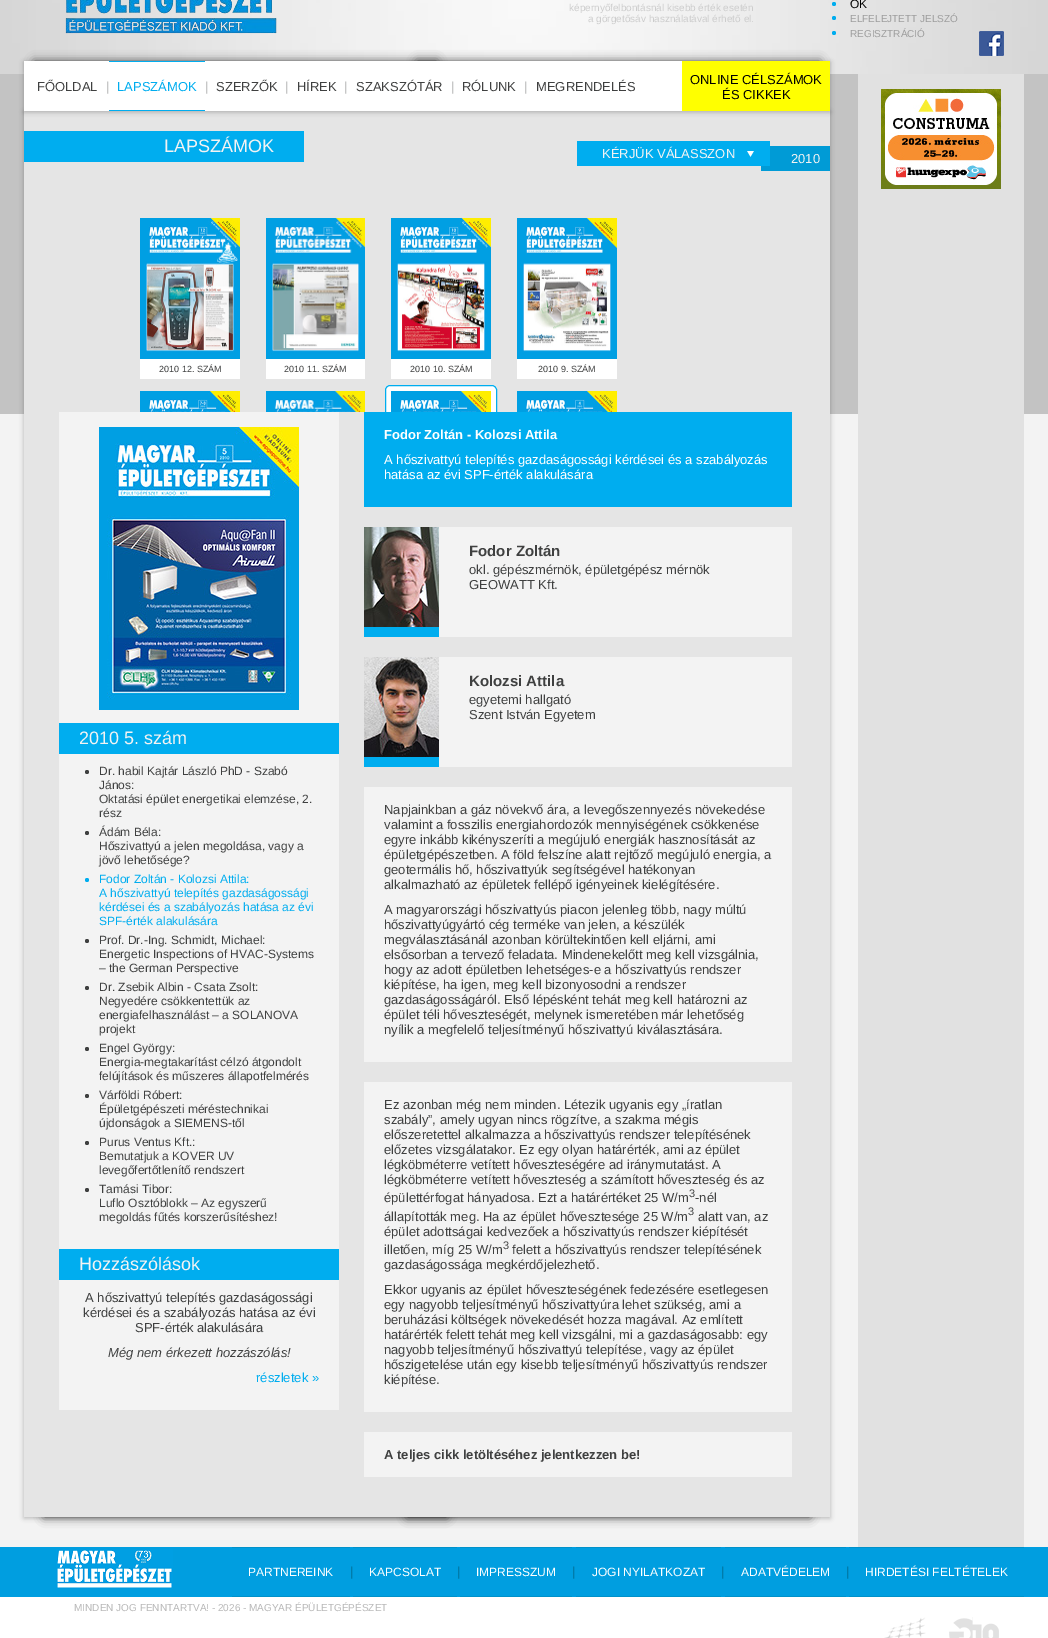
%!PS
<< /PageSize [1048 1638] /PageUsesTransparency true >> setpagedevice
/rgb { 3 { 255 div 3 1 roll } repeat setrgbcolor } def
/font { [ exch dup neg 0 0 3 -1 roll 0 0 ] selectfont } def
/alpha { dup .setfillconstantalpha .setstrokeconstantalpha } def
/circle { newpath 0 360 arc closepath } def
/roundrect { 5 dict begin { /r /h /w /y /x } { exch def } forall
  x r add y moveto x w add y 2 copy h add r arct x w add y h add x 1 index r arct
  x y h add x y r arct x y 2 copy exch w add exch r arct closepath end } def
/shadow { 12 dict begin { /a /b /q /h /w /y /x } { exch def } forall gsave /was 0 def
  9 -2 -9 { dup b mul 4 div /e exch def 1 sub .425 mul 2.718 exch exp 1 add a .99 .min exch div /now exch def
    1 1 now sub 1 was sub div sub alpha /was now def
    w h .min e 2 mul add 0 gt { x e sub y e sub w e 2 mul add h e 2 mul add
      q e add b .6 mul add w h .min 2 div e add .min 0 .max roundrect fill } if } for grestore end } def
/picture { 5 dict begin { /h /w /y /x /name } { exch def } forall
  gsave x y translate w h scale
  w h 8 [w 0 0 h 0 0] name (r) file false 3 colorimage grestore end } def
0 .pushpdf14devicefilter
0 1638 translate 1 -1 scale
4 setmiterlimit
243 243 243 rgb
0 0 1048 1638 rectfill
(img/1.rgb) 0 0 1048 74 picture
(img/2.rgb) 65 0 212 34 picture
0 173 239 rgb
834 4 2 circle fill
834 18 2 circle fill
834 33 2 circle fill
(img/3.rgb) 979 31 25 25 picture
195 195 195 rgb
0 74 1048 340 rectfill
0 0 0 rgb
24 112 806 1406 0 2.5 0.25 shadow
44 1507 403 10 0 5 0.7 shadow
407 1507 403 10 0 5 0.7 shadow
229 229 229 rgb
24 111 806 1406 rectfill
0 0 0 rgb
24 62 806 50 0 2.5 0.25 shadow
34 61 403 10 0 5 0.6 shadow
417 61 403 10 0 5 0.6 shadow
[
  [24 61 658 50 255 255 255]
  [109 61 96 1 0 173 239]
  [109 110 96 1 0 173 239]
  [682 61 148 50 255 255 0]
  [24 131 280 31 0 173 239]
  [761 146 69 25 0 155 214]
  [577 141 193 25 0 173 239]
] { aload pop rgb rectfill } forall
(img/4.rgb) 747 151 7 6 picture
(img/5.rgb) 140 218 100 141 picture
255 255 255 rgb
140 359 100 20 rectfill
(img/6.rgb) 266 218 99 141 picture
266 359 99 20 rectfill
(img/7.rgb) 391 218 100 141 picture
391 359 100 20 rectfill
(img/8.rgb) 517 218 100 141 picture
517 359 100 20 rectfill
(img/9.rgb) 140 391 100 21 picture
(img/10.rgb) 266 391 99 21 picture
390 385 moveto 492 385 lineto 495 385 497 387 497 390 curveto 497 412 lineto 385 412 lineto 385 390 lineto 385 387 387 385 390 385 curveto closepath fill
gsave
127 212 600 200 rectclip
0 173 239 rgb
385.5 385.5 111 172 4.5 roundrect stroke
grestore
(img/11.rgb) 391 391 100 21 picture
(img/12.rgb) 517 391 100 21 picture
243 243 243 rgb
59 412 280 998 rectfill
(img/13.rgb) 99 427 200 283 picture
0 173 239 rgb
59 723 280 31 rectfill
63 64 64 rgb
87 772 2 circle fill
87 833 2 circle fill
0 173 239 rgb
87 880 2 circle fill
63 64 64 rgb
87 941 2 circle fill
87 988 2 circle fill
87 1049 2 circle fill
87 1096 2 circle fill
87 1143 2 circle fill
87 1190 2 circle fill
[
  [59 1249 280 31 0 173 239]
  [364 412 428 95 0 173 239]
  [439 527 353 110 243 243 243]
  [364 627 75 10 0 173 239]
] { aload pop rgb rectfill } forall
(img/14.rgb) 364 527 75 100 picture
243 243 243 rgb
439 657 353 110 rectfill
0 173 239 rgb
364 757 75 10 rectfill
(img/15.rgb) 364 657 75 100 picture
[
  [364 787 428 275 243 243 243]
  [364 1082 428 330 243 243 243]
  [364 1432 428 45 243 243 243]
  [858 74 166 1473 225 225 225]
] { aload pop rgb rectfill } forall
(img/16.rgb) 881 89 120 100 picture
255 255 255 rgb
0 1597 1048 41 rectfill
0 158 224 rgb
0 1547 1048 50 rectfill
(img/17.rgb) 56 1549 117 40 picture
[
  [232 1547 118 1 0 145 201]
  [232 1596 118 1 0 145 201]
  [353 1547 104 1 0 145 201]
  [353 1596 104 1 0 145 201]
  [460 1547 112 1 0 145 201]
  [460 1596 112 1 0 145 201]
  [576 1547 145 1 0 145 201]
  [576 1596 145 1 0 145 201]
  [725 1547 121 1 0 145 201]
  [725 1596 121 1 0 145 201]
  [849 1547 175 1 0 145 201]
  [849 1596 175 1 0 145 201]
] { aload pop rgb rectfill } forall
(img/18.rgb) 884 1617 42 21 picture
(img/19.rgb) 949 1617 50 21 picture
/LiberationSans-Regular 10 font
204 204 204 rgb
569 11 moveto (képernyőfelbontásnál kisebb érték esetén) show
588 22 moveto (a görgetősáv használatával érhető el.) show
/LiberationSans-Regular 12 font
0 0 0 rgb
850 8 moveto (OK) show
/LiberationSans-Regular 10 font
157 157 157 rgb
850 22 moveto (ELFELEJTETT JELSZÓ) show
850 37 moveto (REGISZTRÁCIÓ) show
/LiberationSans-Regular 13 font
63 64 64 rgb
37 91 moveto (FŐOLDAL) show
178 179 179 rgb
106 91 moveto (|) show
0 173 239 rgb
117 91 moveto (LAPSZÁMOK) show
178 179 179 rgb
205 91 moveto (|) show
63 64 64 rgb
216 91 moveto (SZERZŐK) show
178 179 179 rgb
285 91 moveto (|) show
63 64 64 rgb
297 91 moveto (HÍREK) show
178 179 179 rgb
344 91 moveto (|) show
63 64 64 rgb
356 91 moveto (SZAKSZÓTÁR) show
178 179 179 rgb
451 91 moveto (|) show
63 64 64 rgb
462 91 moveto (RÓLUNK) show
178 179 179 rgb
524 91 moveto (|) show
63 64 64 rgb
536 91 moveto (MEGRENDELÉS) show
0 0 0 rgb
690 84 moveto (ONLINE CÉLSZÁMOK) show
722 99 moveto (ÉS CIKKEK) show
/LiberationSans-Regular 18 font
243 243 243 rgb
164 152 moveto (LAPSZÁMOK) show
/LiberationSans-Regular 13 font
602 158 moveto (KÉRJÜK VÁLASSZON) show
791 163 moveto (2010) show
/LiberationSans-Regular 9 font
63 64 64 rgb
[
  [(2010 12. SZÁM) 159 372]
  [(2010 11. SZÁM) 284 372]
  [(2010 10. SZÁM) 410 372]
  [(2010 9. SZÁM) 538 372]
] { aload pop moveto show } forall
/LiberationSans-Regular 18 font
243 243 243 rgb
79 744 moveto (2010 5. szám) show
/LiberationSans-Regular 12 font
63 64 64 rgb
[
  [(Dr. habil Kajtár László PhD - Szabó) 99 775]
  [(János:) 99 789]
  [(Oktatási épület energetikai elemzése, 2.) 99 803]
  [(rész) 99 817]
  [(Ádám Béla:) 99 836]
  [(Hőszivattyú a jelen megoldása, vagy a) 99 850]
  [(jövő lehetősége?) 99 864]
] { aload pop moveto show } forall
0 173 239 rgb
[
  [(Fodor Zoltán - Kolozsi Attila:) 99 883]
  [(A hőszivattyú telepítés gazdaságossági) 99 897]
  [(kérdései és a szabályozás hatása az évi) 99 911]
  [(SPF-érték alakulására) 99 925]
] { aload pop moveto show } forall
63 64 64 rgb
[
  [(Prof. Dr.-Ing. Schmidt, Michael:) 99 944]
  [(Energetic Inspections of HVAC-Systems) 99 958]
  [(– the German Perspective) 99 972]
  [(Dr. Zsebik Albin - Csata Zsolt:) 99 991]
  [(Negyedére csökkentettük az) 99 1005]
  [(energiafelhasználást – a SOLANOVA) 99 1019]
  [(projekt) 99 1033]
  [(Engel György:) 99 1052]
  [(Energia-megtakarítást célzó átgondolt) 99 1066]
  [(felújítások és műszeres állapotfelmérés) 99 1080]
  [(Várföldi Róbert:) 99 1099]
  [(Épületgépészeti méréstechnikai) 99 1113]
  [(újdonságok a SIEMENS-től) 99 1127]
  [(Purus Ventus Kft.:) 99 1146]
  [(Bemutatjuk a KOVER UV) 99 1160]
  [(levegőfertőtlenítő rendszert) 99 1174]
  [(Tamási Tibor:) 99 1193]
  [(Luflo Osztóblokk – Az egyszerű) 99 1207]
  [(megoldás fűtés korszerűsítéshez!) 99 1221]
] { aload pop moveto show } forall
/LiberationSans-Regular 18 font
243 243 243 rgb
79 1270 moveto (Hozzászólások) show
/LiberationSans-Regular 13 font
63 64 64 rgb
[
  [(A hőszivattyú telepítés gazdaságossági) 85 1302]
  [(kérdései és a szabályozás hatása az évi) 83 1317]
  [(SPF-érték alakulására) 135 1332]
] { aload pop moveto show } forall
/LiberationSans-Italic 13 font
108 1357 moveto (Még nem érkezett hozzászólás!) show
/LiberationSans-Regular 13 font
0 173 239 rgb
256 1382 moveto (részletek ») show
/LiberationSans-Bold 13 font
255 255 255 rgb
384 439 moveto (Fodor Zoltán - Kolozsi Attila) show
/LiberationSans-Regular 13 font
384 464 moveto (A hőszivattyú telepítés gazdaságossági kérdései és a szabályozás) show
384 479 moveto (hatása az évi SPF-érték alakulására) show
/LiberationSans-Bold 15 font
63 64 64 rgb
469 556 moveto (Fodor Zoltán) show
/LiberationSans-Regular 13 font
469 574 moveto (okl. gépészmérnök, épületgépész mérnök) show
469 589 moveto (GEOWATT Kft.) show
/LiberationSans-Bold 15 font
469 686 moveto (Kolozsi Attila) show
/LiberationSans-Regular 13 font
[
  [(egyetemi hallgató) 469 704]
  [(Szent István Egyetem) 469 719]
  [(Napjainkban a gáz növekvő ára, a levegőszennyezés növekedése) 384 814]
  [(valamint a fosszilis energiahordozók mennyiségének csökkenése) 384 829]
  [(egyre inkább kikényszeríti a megújuló energiák hasznosítását az) 384 844]
  [(épületgépészetben. A föld felszíne alatt rejtőző megújuló energia, a) 384 859]
  [(geotermális hő, hőszivattyúk segítségével hatékonyan) 384 874]
  [(alkalmazható az épületek fellépő igényeinek kielégítésére.) 384 889]
  [(A magyarországi hőszivattyús piacon jelenleg több, nagy múltú) 384 914]
  [(hőszivattyúgyártó cég terméke van jelen, a készülék) 384 929]
  [(megválasztásánál azonban körültekintően kell eljárni, ami) 384 944]
  [(elsősorban a tervező feladata. Mindenekelőtt meg kell vizsgálnia,) 384 959]
  [(hogy az adott épületben lehetséges-e a hőszivattyús rendszer) 384 974]
  [(kiépítése, ha igen, meg kell bizonyosodni a rendszer) 384 989]
  [(gazdaságosságáról. Első lépésként tehát meg kell határozni az) 384 1004]
  [(épület téli hőveszteségét, melynek ismeretében már lehetőség) 384 1019]
  [(nyílik a megfelelő teljesítményű hőszivattyú kiválasztására.) 384 1034]
  [(Ez azonban még nem minden. Létezik ugyanis egy „íratlan) 384 1109]
  [(szabály”, amely ugyan nincs rögzítve, a szakma mégis) 384 1124]
  [(előszeretettel alkalmazza a hőszivattyús rendszer telepítésének) 384 1139]
  [(előzetes vizsgálatakor. Ez egy olyan határérték, ami az épület) 384 1154]
  [(légköbméterre vetített hőveszteségére ad iránymutatást. A) 384 1169]
  [(légköbméterre vetített hőveszteség a számított hőveszteség és az) 384 1184]
  [(épülettérfogat hányadosa. Ezt a határértéket 25 W/m) 384 1202]
] { aload pop moveto show } forall
/LiberationSans-Regular 11 font
689 1197 moveto (3) show
/LiberationSans-Regular 13 font
695 1202 moveto (-nél) show
384 1221 moveto (állapították meg. Ha az épület hővesztesége 25 W/m) show
/LiberationSans-Regular 11 font
688 1215 moveto (3) show
/LiberationSans-Regular 13 font
[
  [(alatt van, az) 698 1221]
  [(épület adottságai kedvezőek a hőszivattyús rendszer kiépítését) 384 1236]
  [(illetően, míg 25 W/m) 384 1254]
] { aload pop moveto show } forall
/LiberationSans-Regular 11 font
503 1249 moveto (3) show
/LiberationSans-Regular 13 font
[
  [(felett a hőszivattyús rendszer telepítésének) 512 1254]
  [(gazdaságossága megkérdőjelezhető.) 384 1269]
  [(Ekkor ugyanis az épület hőveszteségének fedezésére esetlegesen) 384 1294]
  [(egy nagyobb teljesítményű hőszivattyúra lehet szükség, ami a) 384 1309]
  [(beruházási költségek növekedését hozza magával. Az említett) 384 1324]
  [(határérték felett tehát meg kell vizsgálni, mi a gazdaságosabb: egy) 384 1339]
  [(nagyobb teljesítményű hőszivattyú telepítése, vagy az épület) 384 1354]
  [(hőszigetelése után egy kisebb teljesítményű hőszivattyús rendszer) 384 1369]
  [(kiépítése.) 384 1384]
] { aload pop moveto show } forall
/LiberationSans-Bold 13 font
384 1459 moveto (A teljes cikk letöltéséhez jelentkezzen be!) show
/LiberationSans-Regular 12 font
255 255 255 rgb
248 1576 moveto (PARTNEREINK) show
/LiberationSans-Regular 13 font
0 111 152 rgb
350 1576 moveto (|) show
/LiberationSans-Regular 12 font
255 255 255 rgb
369 1576 moveto (KAPCSOLAT) show
/LiberationSans-Regular 13 font
0 111 152 rgb
457 1576 moveto (|) show
/LiberationSans-Regular 12 font
255 255 255 rgb
476 1576 moveto (IMPRESSZUM) show
/LiberationSans-Regular 13 font
0 111 152 rgb
572 1576 moveto (|) show
/LiberationSans-Regular 12 font
255 255 255 rgb
592 1576 moveto (JOGI NYILATKOZAT) show
/LiberationSans-Regular 13 font
0 111 152 rgb
721 1576 moveto (|) show
/LiberationSans-Regular 12 font
255 255 255 rgb
741 1576 moveto (ADATVÉDELEM) show
/LiberationSans-Regular 13 font
0 111 152 rgb
846 1576 moveto (|) show
/LiberationSans-Regular 12 font
255 255 255 rgb
865 1576 moveto (HIRDETÉSI FELTÉTELEK) show
/LiberationSans-Regular 10 font
184 184 184 rgb
74 1611 moveto (MINDEN JOG FENNTARTVA! - 2026 - MAGYAR ÉPÜLETGÉPÉSZET) show
.poppdf14devicefilter showpage
